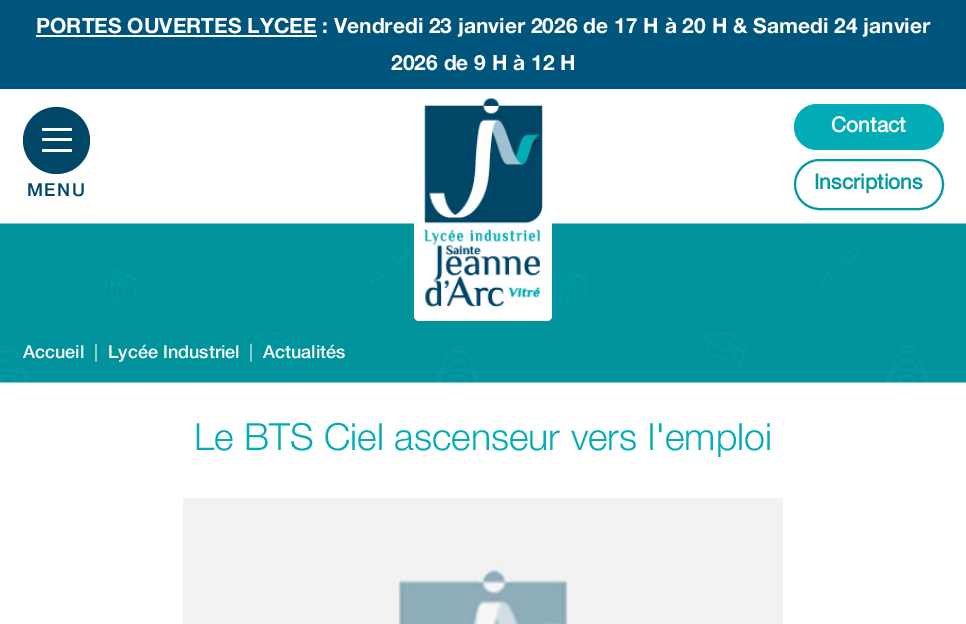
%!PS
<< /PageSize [966 624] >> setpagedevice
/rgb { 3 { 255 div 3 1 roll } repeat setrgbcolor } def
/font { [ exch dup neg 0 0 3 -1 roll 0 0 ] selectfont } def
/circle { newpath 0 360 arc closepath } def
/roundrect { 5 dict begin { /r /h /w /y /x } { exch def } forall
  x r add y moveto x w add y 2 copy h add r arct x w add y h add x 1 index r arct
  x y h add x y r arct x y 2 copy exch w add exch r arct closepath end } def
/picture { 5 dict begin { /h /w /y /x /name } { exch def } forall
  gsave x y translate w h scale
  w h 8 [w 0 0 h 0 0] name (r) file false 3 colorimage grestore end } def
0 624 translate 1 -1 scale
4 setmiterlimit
255 255 255 rgb
0 0 966 624 rectfill
0 85 125 rgb
0 0 966 89 rectfill
255 255 255 rgb
36 35 281 2 rectfill
0 70 103 rgb
56.5 140.5 33.5 circle fill
255 255 255 rgb
42 128 30 3 1.5 roundrect fill
42 138 30 3 1.5 roundrect fill
42 149 30 3 1.5 roundrect fill
(img/2.rgb) 0 223 966 160 picture
414 89 138 232 5 roundrect fill
(img/1.rgb) 424 98 119 209 picture
1 172 182 rgb
794 104 150 46 23 roundrect fill
2 153 161 rgb
2 setlinewidth
795 160 148 49 24.5 roundrect stroke
(img/3.rgb) 183 498 600 126 picture
/HelveticaNeue-Bold 21 font
255 255 255 rgb
36 33 moveto (PORTES OUVERTES LYCEE : Vendredi 23 janvier 2026 de 17 H à 20 H & Samedi 24 janvier) show
391 70 moveto (2026 de 9 H à 12 H) show
/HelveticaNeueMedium-Medium 18 font
0 70 103 rgb
27 196 moveto 1.5 0 (MENU) ashow
/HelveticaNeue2-Bold 21 font
255 255 255 rgb
831 132 moveto (Contact) show
2 153 161 rgb
814 189 moveto (Inscriptions) show
/HelveticaNeueMedium-Medium 18 font
255 255 255 rgb
23 358 moveto (Accueil) show
/HelveticaNeue-Regular 18 font
94 358 moveto (|) show
/HelveticaNeueMedium-Medium 18 font
108 358 moveto (Lycée Industriel) show
/HelveticaNeue-Regular 18 font
249 358 moveto (|) show
/HelveticaNeueMedium-Medium 18 font
263 358 moveto (Actualités) show
/HelveticaNeue-Light 37.5 font
1 172 182 rgb
194 450 moveto (Le BTS Ciel ascenseur vers l'emploi) show
showpage
